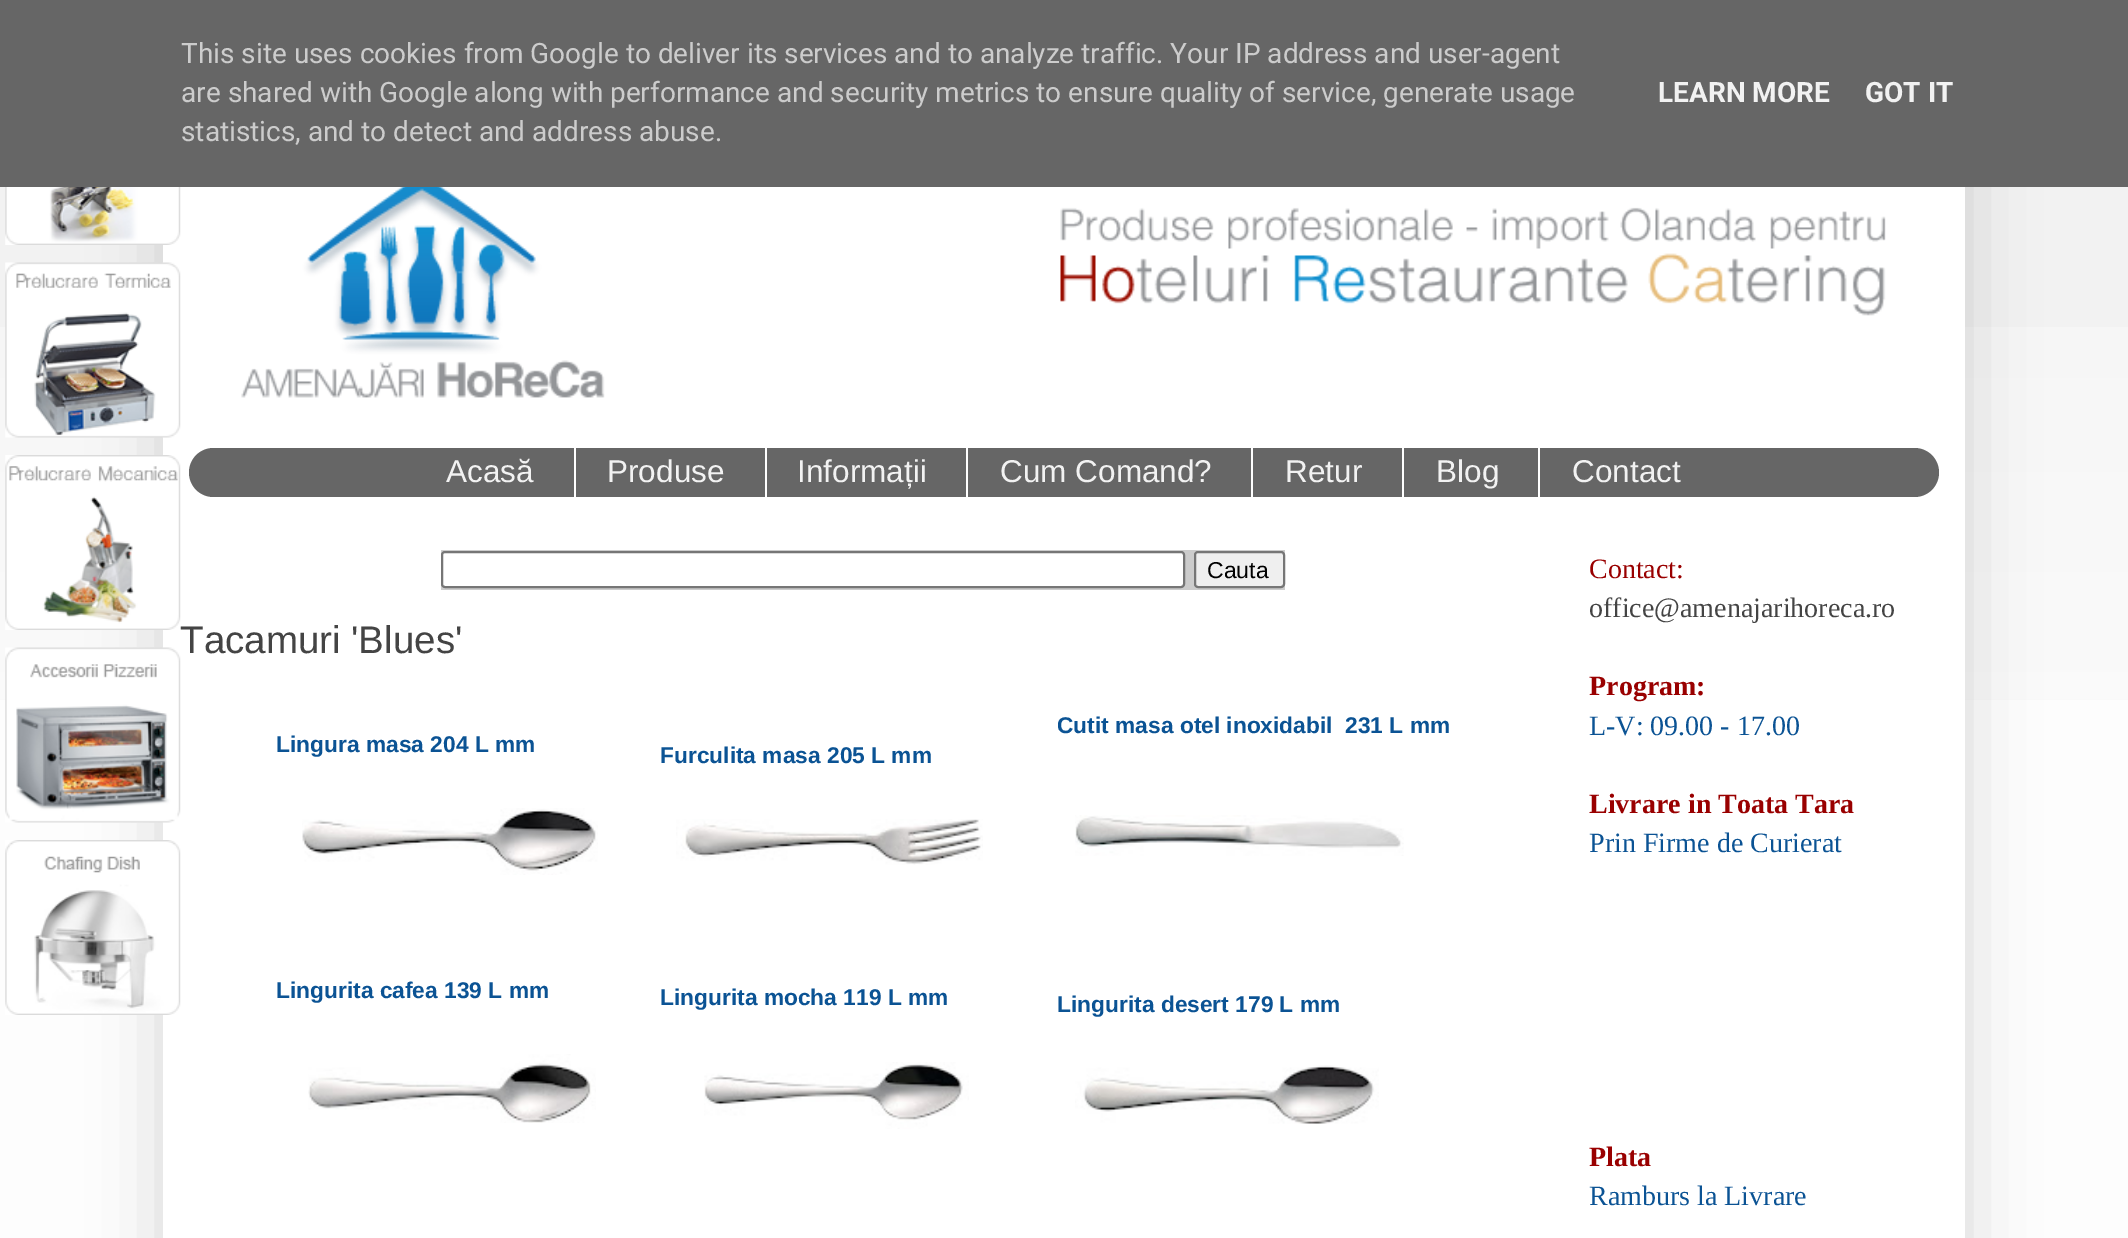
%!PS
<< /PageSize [2128 1238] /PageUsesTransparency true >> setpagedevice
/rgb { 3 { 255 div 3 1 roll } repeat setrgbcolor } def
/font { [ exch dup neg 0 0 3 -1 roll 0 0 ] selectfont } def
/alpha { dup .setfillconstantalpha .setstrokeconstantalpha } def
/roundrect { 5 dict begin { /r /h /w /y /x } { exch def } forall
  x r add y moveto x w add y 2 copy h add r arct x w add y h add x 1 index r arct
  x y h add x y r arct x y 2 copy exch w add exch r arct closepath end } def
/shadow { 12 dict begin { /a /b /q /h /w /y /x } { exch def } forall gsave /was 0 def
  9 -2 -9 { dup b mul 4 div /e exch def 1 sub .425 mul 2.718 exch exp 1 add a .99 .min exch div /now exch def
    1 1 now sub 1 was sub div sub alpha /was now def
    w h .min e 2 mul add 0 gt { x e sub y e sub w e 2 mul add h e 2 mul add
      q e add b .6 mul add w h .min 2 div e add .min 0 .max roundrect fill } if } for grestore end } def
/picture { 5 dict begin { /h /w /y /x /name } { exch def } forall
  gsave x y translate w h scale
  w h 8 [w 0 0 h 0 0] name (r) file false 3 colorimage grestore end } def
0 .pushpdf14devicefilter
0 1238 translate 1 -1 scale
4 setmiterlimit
253 253 253 rgb
0 0 2128 1238 rectfill
242 242 242 rgb
0 187 2128 513 rectfill
(img/1.rgb) 0 327 2128 373 picture
0 0 0 rgb
163 98 1802 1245 0 35 0.15 shadow
102 102 102 rgb
0 0 2128 187 rectfill
255 255 255 rgb
163 187 1802 1051 rectfill
(img/2.rgb) 5 187 176 58 picture
(img/3.rgb) 5 262 176 176 picture
(img/4.rgb) 5 455 176 175 picture
(img/5.rgb) 241 187 1645 211 picture
102 102 102 rgb
189 448 1750 49 24.5 roundrect fill
[
  [574 448 2 49 255 255 255]
  [765 448 2 49 255 255 255]
  [966 448 2 49 255 255 255]
  [1251 448 2 49 255 255 255]
  [1402 448 2 49 255 255 255]
  [1538 448 2 49 255 255 255]
  [441 550 844 40 204 204 204]
] { aload pop rgb rectfill } forall
255 255 255 rgb
442 552 742 35 3 roundrect gsave fill grestore
118 118 118 rgb
2 setlinewidth
stroke
239 239 239 rgb
1195 552 89 35 3 roundrect gsave fill grestore
118 118 118 rgb
stroke
(img/6.rgb) 1075 815 329 41 picture
(img/7.rgb) 302 808 296 67 picture
(img/8.rgb) 676 819 307 46 picture
(img/9.rgb) 308 1054 288 69 picture
(img/10.rgb) 704 1062 265 67 picture
(img/11.rgb) 1075 1065 304 59 picture
(img/12.rgb) 5 647 176 176 picture
(img/13.rgb) 5 840 176 175 picture
/Roboto-Regular 28 font
204 204 204 rgb
[
  [(This site uses cookies from Google to deliver its services and to analyze traffic. Your IP address and user-agent) 181 63]
  [(are shared with Google along with performance and security metrics to ensure quality of service, generate usage) 181 102]
  [(statistics, and to detect and address abuse.) 181 141]
] { aload pop moveto show } forall
/Roboto-Bold 28 font
242 242 242 rgb
1658 102 moveto (LEARN MORE) show
1865 102 moveto (GOT IT) show
/LiberationSans-Regular 31.5 font
[
  [(Acasă) 446 482]
  [(Produse) 607 482]
  [(Informații) 797 482]
  [(Cum Comand?) 1000 482]
  [(Retur) 1285 482]
  [(Blog) 1436 482]
  [(Contact) 1572 482]
] { aload pop moveto show } forall
/LiberationSans-Regular 23 font
0 0 0 rgb
1207 578 moveto (Cauta) show
/LiberationSans-Regular 38.5 font
68 68 68 rgb
180 653 moveto (Tacamuri 'Blues') show
/LiberationSans-Bold 22.75 font
11 83 148 rgb
[
  [(Cutit masa otel inoxidabil  231 L mm) 1057 733]
  [(Lingura masa 204 L mm) 276 752]
  [(Furculita masa 205 L mm) 660 763]
  [(Lingurita cafea 139 L mm) 276 998]
  [(Lingurita mocha 119 L mm) 660 1005]
  [(Lingurita desert 179 L mm) 1057 1012]
] { aload pop moveto show } forall
/LiberationSerif-Regular 28 font
153 0 0 rgb
1589 578 moveto (Contact:) show
68 68 68 rgb
1589 617 moveto (office@amenajarihoreca.ro) show
/LiberationSerif-Bold 28 font
153 0 0 rgb
1589 695 moveto (Program:) show
/LiberationSerif-Regular 28 font
11 83 148 rgb
1589 735 moveto (L-V: 09.00 - 17.00) show
/LiberationSerif-Bold 28 font
153 0 0 rgb
1589 813 moveto (Livrare in Toata Tara) show
/LiberationSerif-Regular 28 font
11 83 148 rgb
1589 852 moveto (Prin Firme de Curierat) show
/LiberationSerif-Bold 28 font
153 0 0 rgb
1589 1166 moveto (Plata) show
/LiberationSerif-Regular 28 font
11 83 148 rgb
1589 1205 moveto (Ramburs la Livrare) show
.poppdf14devicefilter showpage
